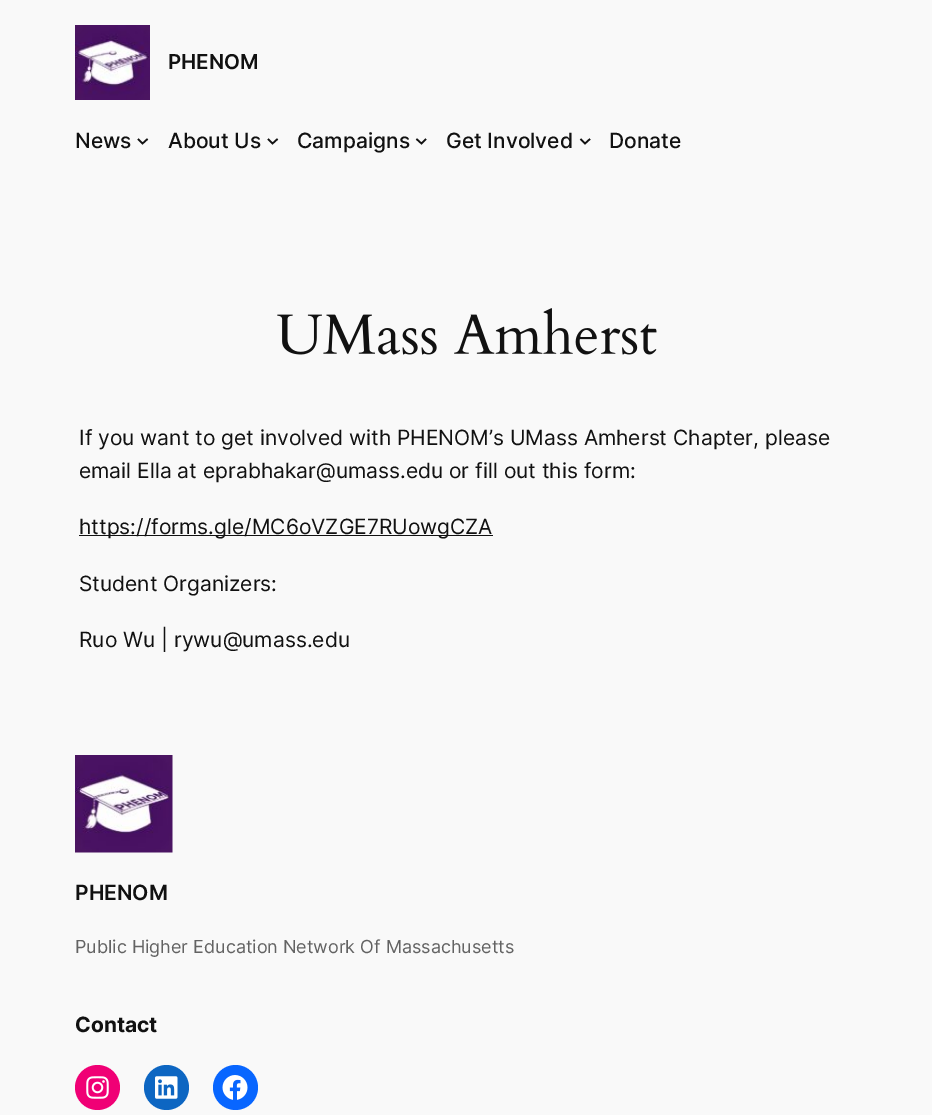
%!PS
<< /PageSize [932 1115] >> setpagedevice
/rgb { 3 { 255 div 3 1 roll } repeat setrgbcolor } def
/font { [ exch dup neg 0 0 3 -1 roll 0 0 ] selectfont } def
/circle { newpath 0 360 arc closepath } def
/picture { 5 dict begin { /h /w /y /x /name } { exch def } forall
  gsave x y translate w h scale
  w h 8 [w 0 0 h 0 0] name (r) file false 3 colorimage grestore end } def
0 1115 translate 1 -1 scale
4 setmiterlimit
249 249 249 rgb
0 0 932 1115 rectfill
(img/1.rgb) 75 25 75 75 picture
17 17 17 rgb
1.6 setlinewidth
138 139 moveto 142.5 143.5 lineto 147.5 139 lineto stroke
268 139 moveto 272.5 143.5 lineto 277.5 139 lineto stroke
416.5 139 moveto 421.5 143.5 lineto 426 139 lineto stroke
580.5 139 moveto 585 143.5 lineto 590 139 lineto stroke
(img/2.rgb) 277 308 380 47 picture
79 535 414 1 rectfill
(img/3.rgb) 75 755 98 98 picture
240 0 117 rgb
97.5 1087.5 22.5 circle fill
(img/4.rgb) 86 1076 23 23 picture
13 102 194 rgb
166.5 1087.5 22.5 circle fill
(img/5.rgb) 155 1076 23 23 picture
8 102 255 rgb
235.5 1087.5 22.5 circle fill
(img/6.rgb) 222 1075 26 25 picture
/Inter-SemiBold 20.5 font
17 17 17 rgb
168 69 moveto (PHENOM) show
/Inter-Medium 21 font
[
  [(News) 75 148]
  [(About Us) 168 148]
  [(Campaigns) 297 148]
  [(Get Involved) 446 148]
  [(Donate) 609 148]
] { aload pop moveto show } forall
/Inter-Regular 21 font
[
  [(If you want to get involved with PHENOM’s UMass Amherst Chapter, please) 79 445]
  [(email Ella at eprabhakar@umass.edu or fill out this form:) 79 478]
  [(https://forms.gle/MC6oVZGE7RUowgCZA) 79 534]
  [(Student Organizers:) 79 591]
  [(Ruo Wu | rywu@umass.edu) 79 647]
] { aload pop moveto show } forall
/Inter-SemiBold 21 font
75 900 moveto (PHENOM) show
/Inter-Regular 18 font
99 99 99 rgb
75 953 moveto (Public Higher Education Network Of Massachusetts) show
/Inter-Bold 21 font
17 17 17 rgb
75 1032 moveto (Contact) show
showpage
